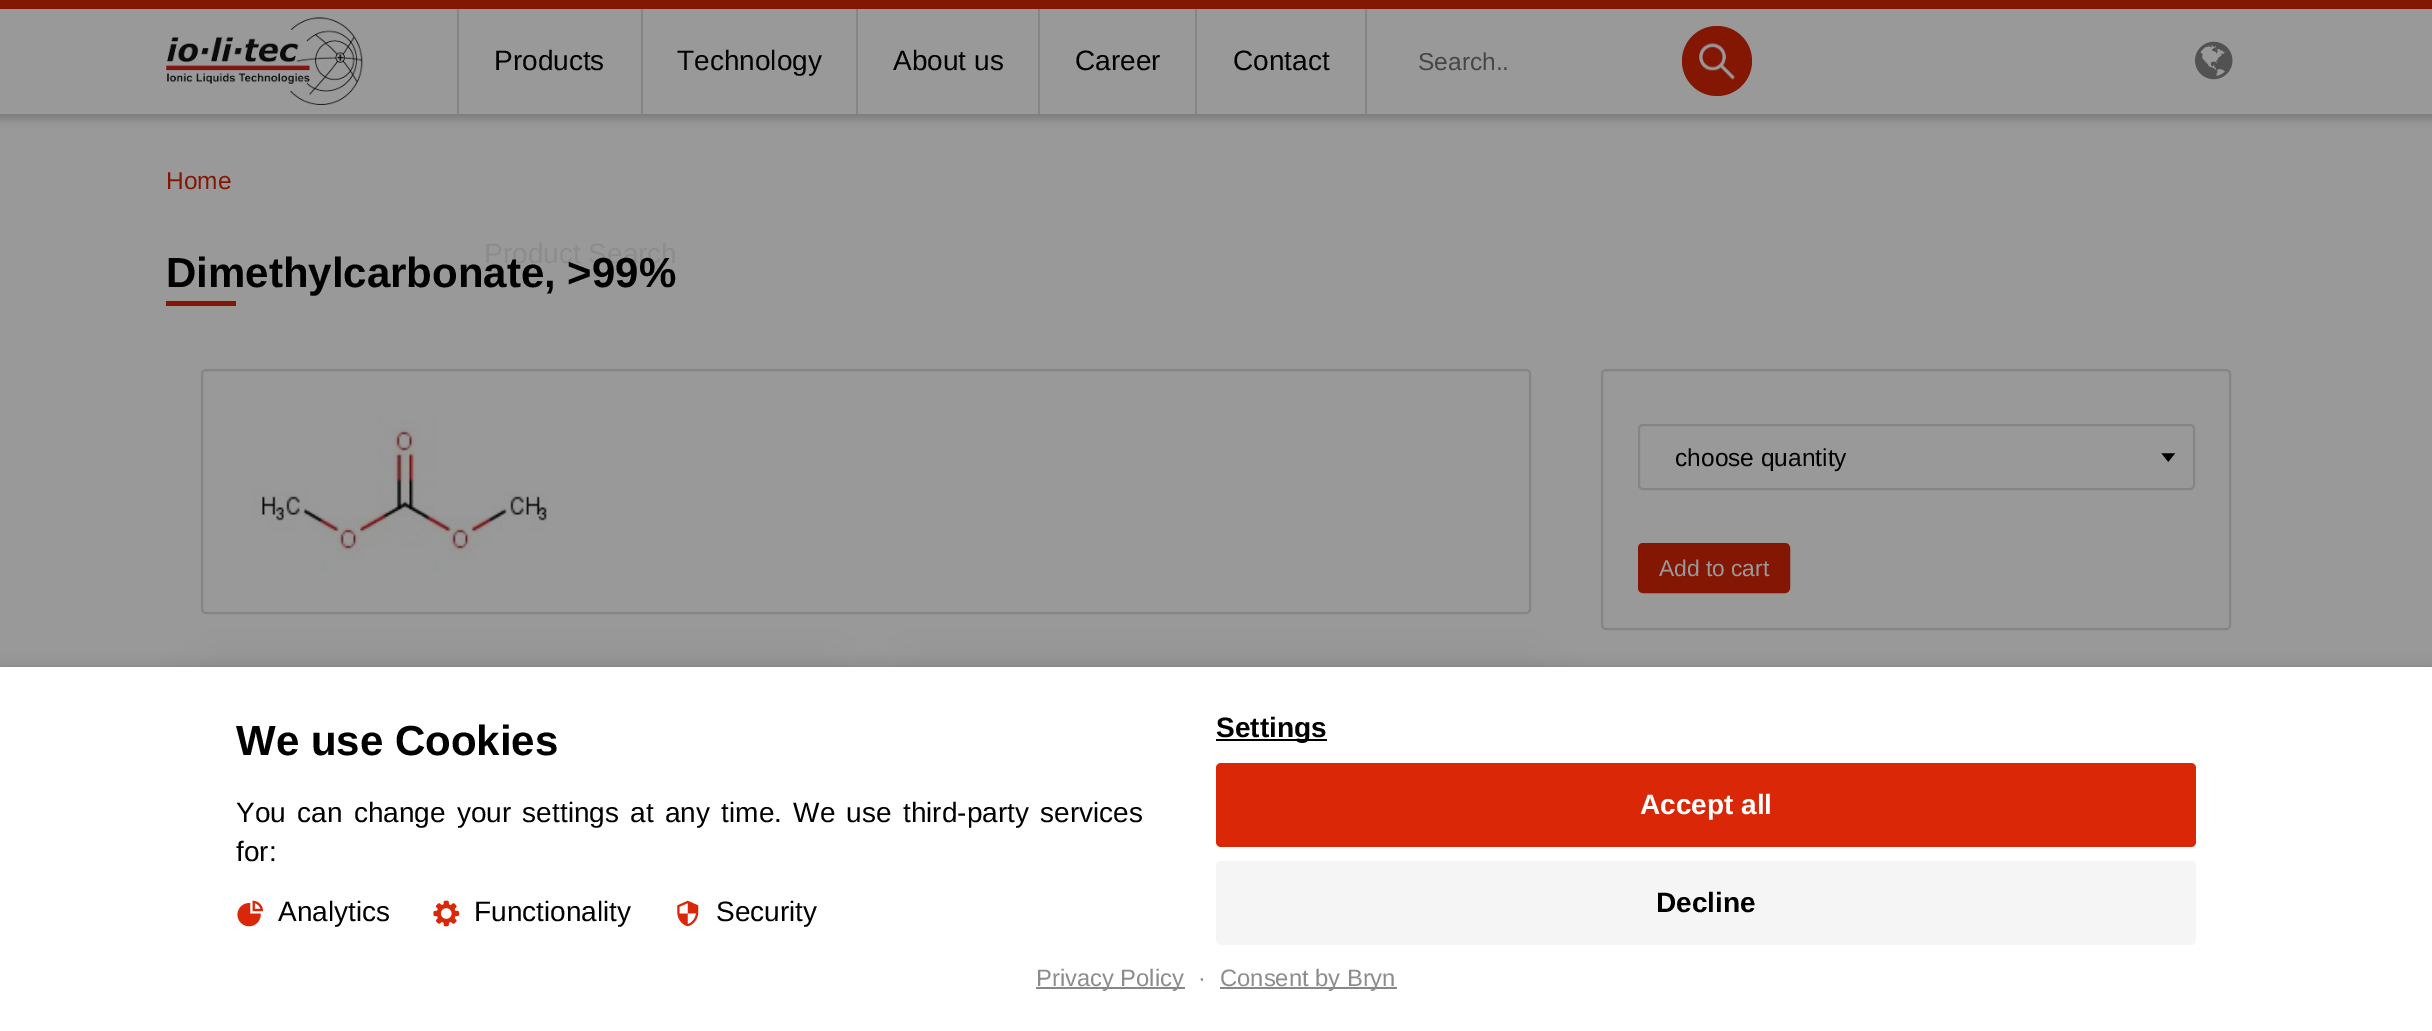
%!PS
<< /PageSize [2432 1031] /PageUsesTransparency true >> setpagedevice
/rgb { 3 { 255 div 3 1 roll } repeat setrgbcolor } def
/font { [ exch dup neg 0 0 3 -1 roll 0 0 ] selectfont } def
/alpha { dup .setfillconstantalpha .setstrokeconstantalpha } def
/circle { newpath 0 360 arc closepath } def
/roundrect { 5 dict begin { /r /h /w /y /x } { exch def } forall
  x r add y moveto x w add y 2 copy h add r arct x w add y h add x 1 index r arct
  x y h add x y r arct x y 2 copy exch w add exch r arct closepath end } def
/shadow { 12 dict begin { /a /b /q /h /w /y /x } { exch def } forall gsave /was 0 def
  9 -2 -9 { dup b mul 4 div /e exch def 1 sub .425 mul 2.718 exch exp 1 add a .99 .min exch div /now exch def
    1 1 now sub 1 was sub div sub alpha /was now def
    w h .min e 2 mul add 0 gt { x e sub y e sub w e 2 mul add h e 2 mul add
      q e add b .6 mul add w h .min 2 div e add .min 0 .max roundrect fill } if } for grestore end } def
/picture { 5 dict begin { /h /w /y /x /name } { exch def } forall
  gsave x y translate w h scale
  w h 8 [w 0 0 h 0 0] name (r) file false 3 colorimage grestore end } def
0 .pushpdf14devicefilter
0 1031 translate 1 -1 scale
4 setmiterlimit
153 153 153 rgb
0 0 2432 1031 rectfill
0 0 0 rgb
-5 4 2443 115 0 4.5 0.2 shadow
131 23 4 rgb
0 0 2432 9 rectfill
153 153 153 rgb
0 9 2432 105 rectfill
(img/1.rgb) 166 17 197 88 picture
[
  [641 9 2 105 133 133 133]
  [457 9 2 105 133 133 133]
  [856 9 2 105 133 133 133]
  [1038 9 2 105 133 133 133]
  [1195 9 2 105 133 133 133]
  [1365 9 2 105 133 133 133]
] { aload pop rgb rectfill } forall
131 23 4 rgb
1717 61 35 circle fill
(img/2.rgb) 1699 43 36 37 picture
(img/3.rgb) 2195 41 38 39 picture
166 301 70 5 rectfill
133 133 133 rgb
2 setlinewidth
202 370 1328 243 4 roundrect stroke
(img/4.rgb) 253 409 294 162 picture
0 0 0 rgb
207 690 630 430 5 28 0.1 shadow
907 690 630 73 5 28 0.1 shadow
133 133 133 rgb
1602 370 628 259 4 roundrect stroke
(img/5.rgb) 2161 453 15 9 picture
1639 425 555 64 4 roundrect stroke
131 23 4 rgb
1640 545 148 46 3 roundrect gsave fill grestore
4 setlinewidth
stroke
0 0 0 rgb
0 672 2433 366 0 9 0.25 shadow
255 255 255 rgb
0 667 2432 364 rectfill
0 0 0 rgb
1216 739 111 2 rectfill
218 39 7 rgb
1216 763 980 84 5 roundrect fill
245 245 245 rgb
1216 861 980 84 5 roundrect fill
(img/6.rgb) 237 900 26 27 picture
(img/7.rgb) 433 900 27 27 picture
(img/8.rgb) 677 900 22 27 picture
136 136 136 rgb
1036 987 149 2 rectfill
1220 987 177 2 rectfill
/LiberationSans-Regular 28 font
0 0 0 rgb
494 70 moveto (Products) show
140 140 140 rgb
484 263 moveto (Product Search) show
0 0 0 rgb
[
  [(Technology) 677 70]
  [(About us) 893 70]
  [(Career) 1075 70]
  [(Contact) 1233 70]
] { aload pop moveto show } forall
/LiberationSans-Regular 24.5 font
70 70 70 rgb
1418 70 moveto (Search..) show
131 23 4 rgb
166 189 moveto (Home) show
/LiberationSans-Bold 42 font
0 0 0 rgb
166 287 moveto (Dimethylcarbonate, >99%) show
/LiberationSans-Regular 24.5 font
1675 466 moveto (choose quantity) show
/LiberationSans-Regular 22.75 font
153 153 153 rgb
1659 576 moveto (Add to cart) show
/LiberationSans-Bold 42 font
0 0 0 rgb
236 755 moveto (We use Cookies) show
/LiberationSans-Bold 28 font
1216 737 moveto (Settings) show
255 255 255 rgb
1640 814 moveto (Accept all) show
0 0 0 rgb
1656 912 moveto (Decline) show
/LiberationSans-Regular 28 font
236 822 moveto 3.5 0 32 (You can change your settings at any time. We use third-party services) widthshow
[
  [(for:) 236 861]
  [(Analytics) 278 921]
  [(Functionality) 474 921]
  [(Security) 716 921]
] { aload pop moveto show } forall
/LiberationSans-Regular 23.75 font
140 140 140 rgb
[
  [(Privacy Policy) 1036 986]
  [(·) 1198 986]
  [(Consent by Bryn) 1220 986]
] { aload pop moveto show } forall
.poppdf14devicefilter showpage
